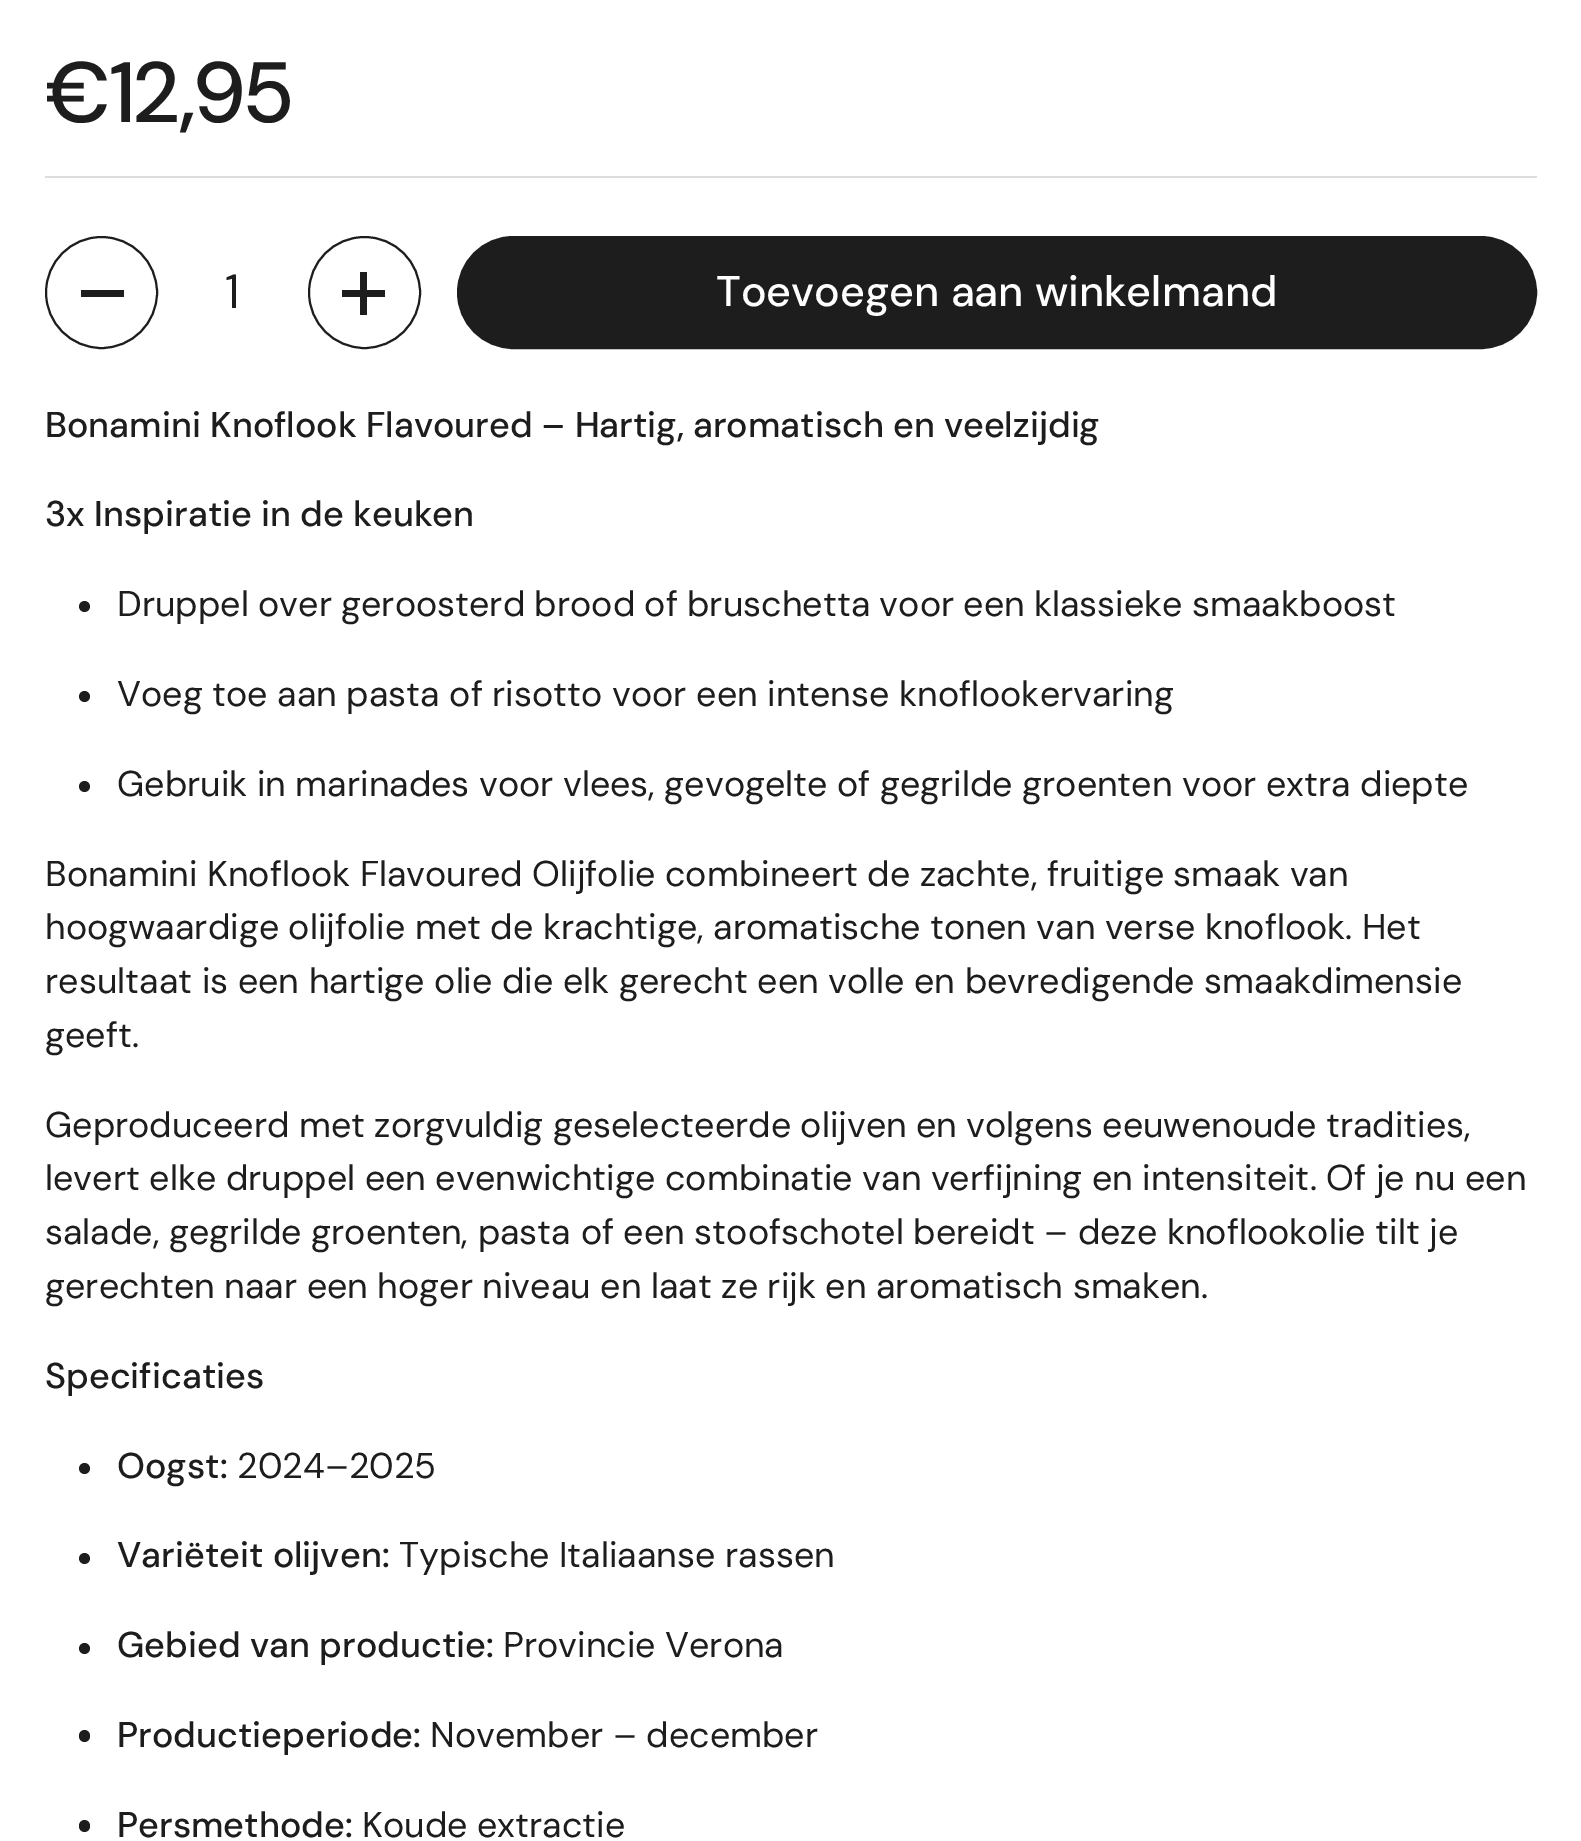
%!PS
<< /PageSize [1581 1841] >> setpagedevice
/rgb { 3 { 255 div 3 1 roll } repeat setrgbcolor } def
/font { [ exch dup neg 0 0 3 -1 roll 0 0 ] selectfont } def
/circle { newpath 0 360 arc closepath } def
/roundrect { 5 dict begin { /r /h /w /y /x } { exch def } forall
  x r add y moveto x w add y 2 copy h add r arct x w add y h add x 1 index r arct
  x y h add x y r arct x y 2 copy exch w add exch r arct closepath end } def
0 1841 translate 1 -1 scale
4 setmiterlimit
255 255 255 rgb
0 0 1581 1841 rectfill
221 221 221 rgb
45 176 1492 2 rectfill
29 29 29 rgb
2 setlinewidth
101.5 292.5 55.5 circle stroke
81 290 43 7 rectfill
364.5 292.5 55.5 circle stroke
360 272 7 43 rectfill
342 290 43 7 rectfill
458 237 1078 111 55.5 roundrect gsave fill grestore
stroke
84.5 606.5 5.5 circle fill
84.5 696.5 5.5 circle fill
84.5 786.5 5.5 circle fill
84.5 1468.5 5.5 circle fill
84.5 1558.5 5.5 circle fill
84.5 1648.5 5.5 circle fill
79 1730 11 12 5.5 roundrect fill
79 1820 11 12 5.5 roundrect fill
/DMSans-Medium 85.5 font
45 122 moveto (€12,95) show
/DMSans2-Regular 48 font
225 308 moveto (1) show
/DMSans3-Medium 43 font
255 255 255 rgb
716 306 moveto (Toevoegen aan winkelmand) show
/DMSans2-Medium 35.85 font
29 29 29 rgb
45 437 moveto -0.25 0 32 (Bonamini Knoflook Flavoured – Hartig, aromatisch en veelzijdig) widthshow
45 526 moveto (3x Inspiratie in de keuken) show
/DMSans-Regular 35.85 font
117 616 moveto -0.25 0 32 (Druppel over geroosterd brood of bruschetta voor een klassieke smaakboost) widthshow
117 706 moveto (Voeg toe aan pasta of risotto voor een intense knoflookervaring) show
117 796 moveto -0.1 0 32 (Gebruik in marinades voor vlees, gevogelte of gegrilde groenten voor extra diepte) widthshow
45 886 moveto -0.25 0 32 (Bonamini Knoflook Flavoured Olijfolie combineert de zachte, fruitige smaak van) widthshow
45 939 moveto -0.1 0 32 (hoogwaardige olijfolie met de krachtige, aromatische tonen van verse knoflook. Het) widthshow
45 993 moveto (resultaat is een hartige olie die elk gerecht een volle en bevredigende smaakdimensie) show
45 1047 moveto (geeft.) show
45 1137 moveto -0.25 0 32 (Geproduceerd met zorgvuldig geselecteerde olijven en volgens eeuwenoude tradities,) widthshow
[
  [(levert elke druppel een evenwichtige combinatie van verfijning en intensiteit. Of je nu een) 45 1190]
  [(salade, gegrilde groenten, pasta of een stoofschotel bereidt – deze knoflookolie tilt je) 45 1244]
  [(gerechten naar een hoger niveau en laat ze rijk en aromatisch smaken.) 45 1298]
] { aload pop moveto show } forall
/DMSans2-Medium 35.85 font
45 1388 moveto (Specificaties) show
117 1478 moveto (Oogst:) show
/DMSans-Regular 35.85 font
237 1478 moveto (2024–2025) show
/DMSans2-Medium 35.85 font
117 1567 moveto (Variëteit olijven:) show
/DMSans-Regular 35.85 font
399 1567 moveto (Typische Italiaanse rassen) show
/DMSans2-Medium 35.85 font
117 1657 moveto (Gebied van productie:) show
/DMSans-Regular 35.85 font
503 1657 moveto (Provincie Verona) show
/DMSans2-Medium 35.85 font
117 1747 moveto (Productieperiode:) show
/DMSans-Regular 35.85 font
430 1747 moveto (November – december) show
/DMSans2-Medium 35.85 font
117 1837 moveto (Persmethode:) show
/DMSans-Regular 35.85 font
362 1837 moveto (Koude extractie) show
showpage
